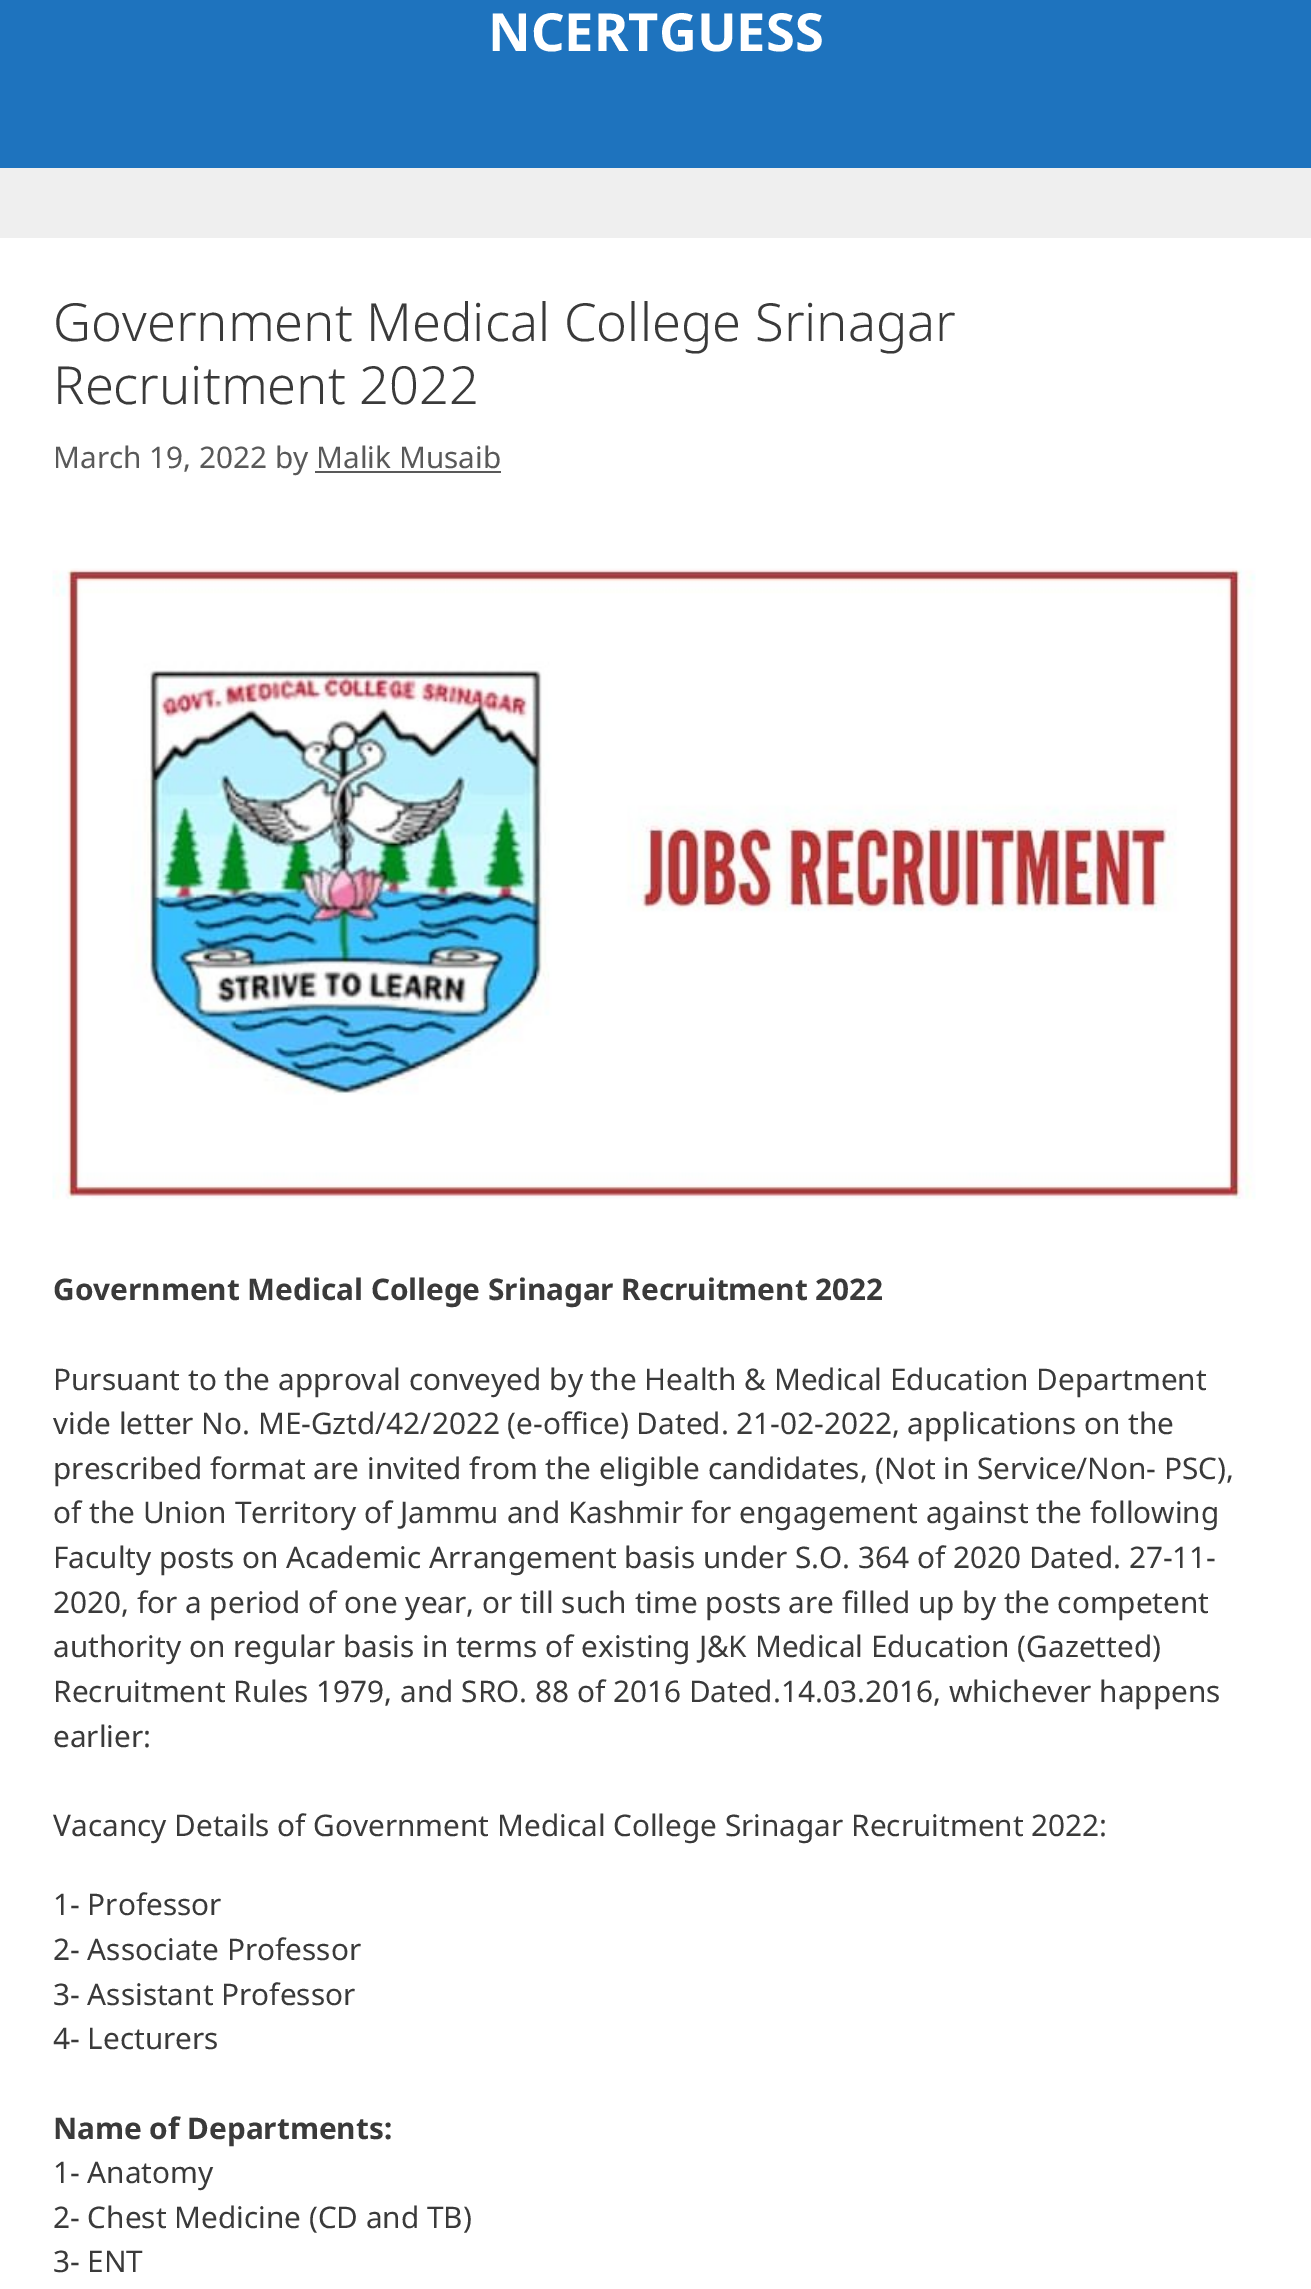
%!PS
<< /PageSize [1311 2289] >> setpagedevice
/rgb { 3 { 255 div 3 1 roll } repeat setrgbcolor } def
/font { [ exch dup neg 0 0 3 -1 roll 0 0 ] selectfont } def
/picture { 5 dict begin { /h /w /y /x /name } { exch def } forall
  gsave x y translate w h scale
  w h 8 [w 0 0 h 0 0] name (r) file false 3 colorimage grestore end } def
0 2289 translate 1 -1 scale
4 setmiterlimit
239 239 239 rgb
0 0 1311 2289 rectfill
[
  [0 0 1311 168 30 115 190]
  [0 238 1311 2051 255 255 255]
  [315 471 186 2 89 89 89]
] { aload pop rgb rectfill } forall
(img/1.rgb) 52 568 1204 632 picture
/NotoSans-Bold 52.5 font
255 255 255 rgb
488 51 moveto (NCERTGUESS) show
/NotoSans-Light 52.5 font
58 58 58 rgb
53 341 moveto (Government Medical College Srinagar) show
53 404 moveto (Recruitment 2022) show
/NotoSans-Regular 29.75 font
89 89 89 rgb
53 468 moveto (March 19, 2022 by Malik Musaib) show
/NotoSans-Bold 29.75 font
58 58 58 rgb
53 1300 moveto (Government Medical College Srinagar Recruitment 2022) show
/NotoSans-Regular 29.75 font
[
  [(Pursuant to the approval conveyed by the Health & Medical Education Department) 53 1390]
  [(vide letter No. ME-Gztd/42/2022 \(e-office\) Dated. 21-02-2022, applications on the) 53 1434]
  [(prescribed format are invited from the eligible candidates, \(Not in Service/Non- PSC\),) 53 1479]
  [(of the Union Territory of Jammu and Kashmir for engagement against the following) 53 1523]
  [(Faculty posts on Academic Arrangement basis under S.O. 364 of 2020 Dated. 27-11-) 53 1568]
  [(2020, for a period of one year, or till such time posts are filled up by the competent) 53 1613]
  [(authority on regular basis in terms of existing J&K Medical Education \(Gazetted\)) 53 1657]
  [(Recruitment Rules 1979, and SRO. 88 of 2016 Dated.14.03.2016, whichever happens) 53 1702]
  [(earlier:) 53 1747]
  [(Vacancy Details of Government Medical College Srinagar Recruitment 2022:) 53 1836]
  [(1- Professor) 53 1915]
  [(2- Associate Professor) 53 1960]
  [(3- Assistant Professor) 53 2005]
  [(4- Lecturers) 53 2049]
] { aload pop moveto show } forall
/NotoSans-Bold 29.75 font
53 2139 moveto (Name of Departments:) show
/NotoSans-Regular 29.75 font
[
  [(1- Anatomy) 53 2183]
  [(2- Chest Medicine \(CD and TB\)) 53 2228]
  [(3- ENT) 53 2272]
] { aload pop moveto show } forall
showpage
